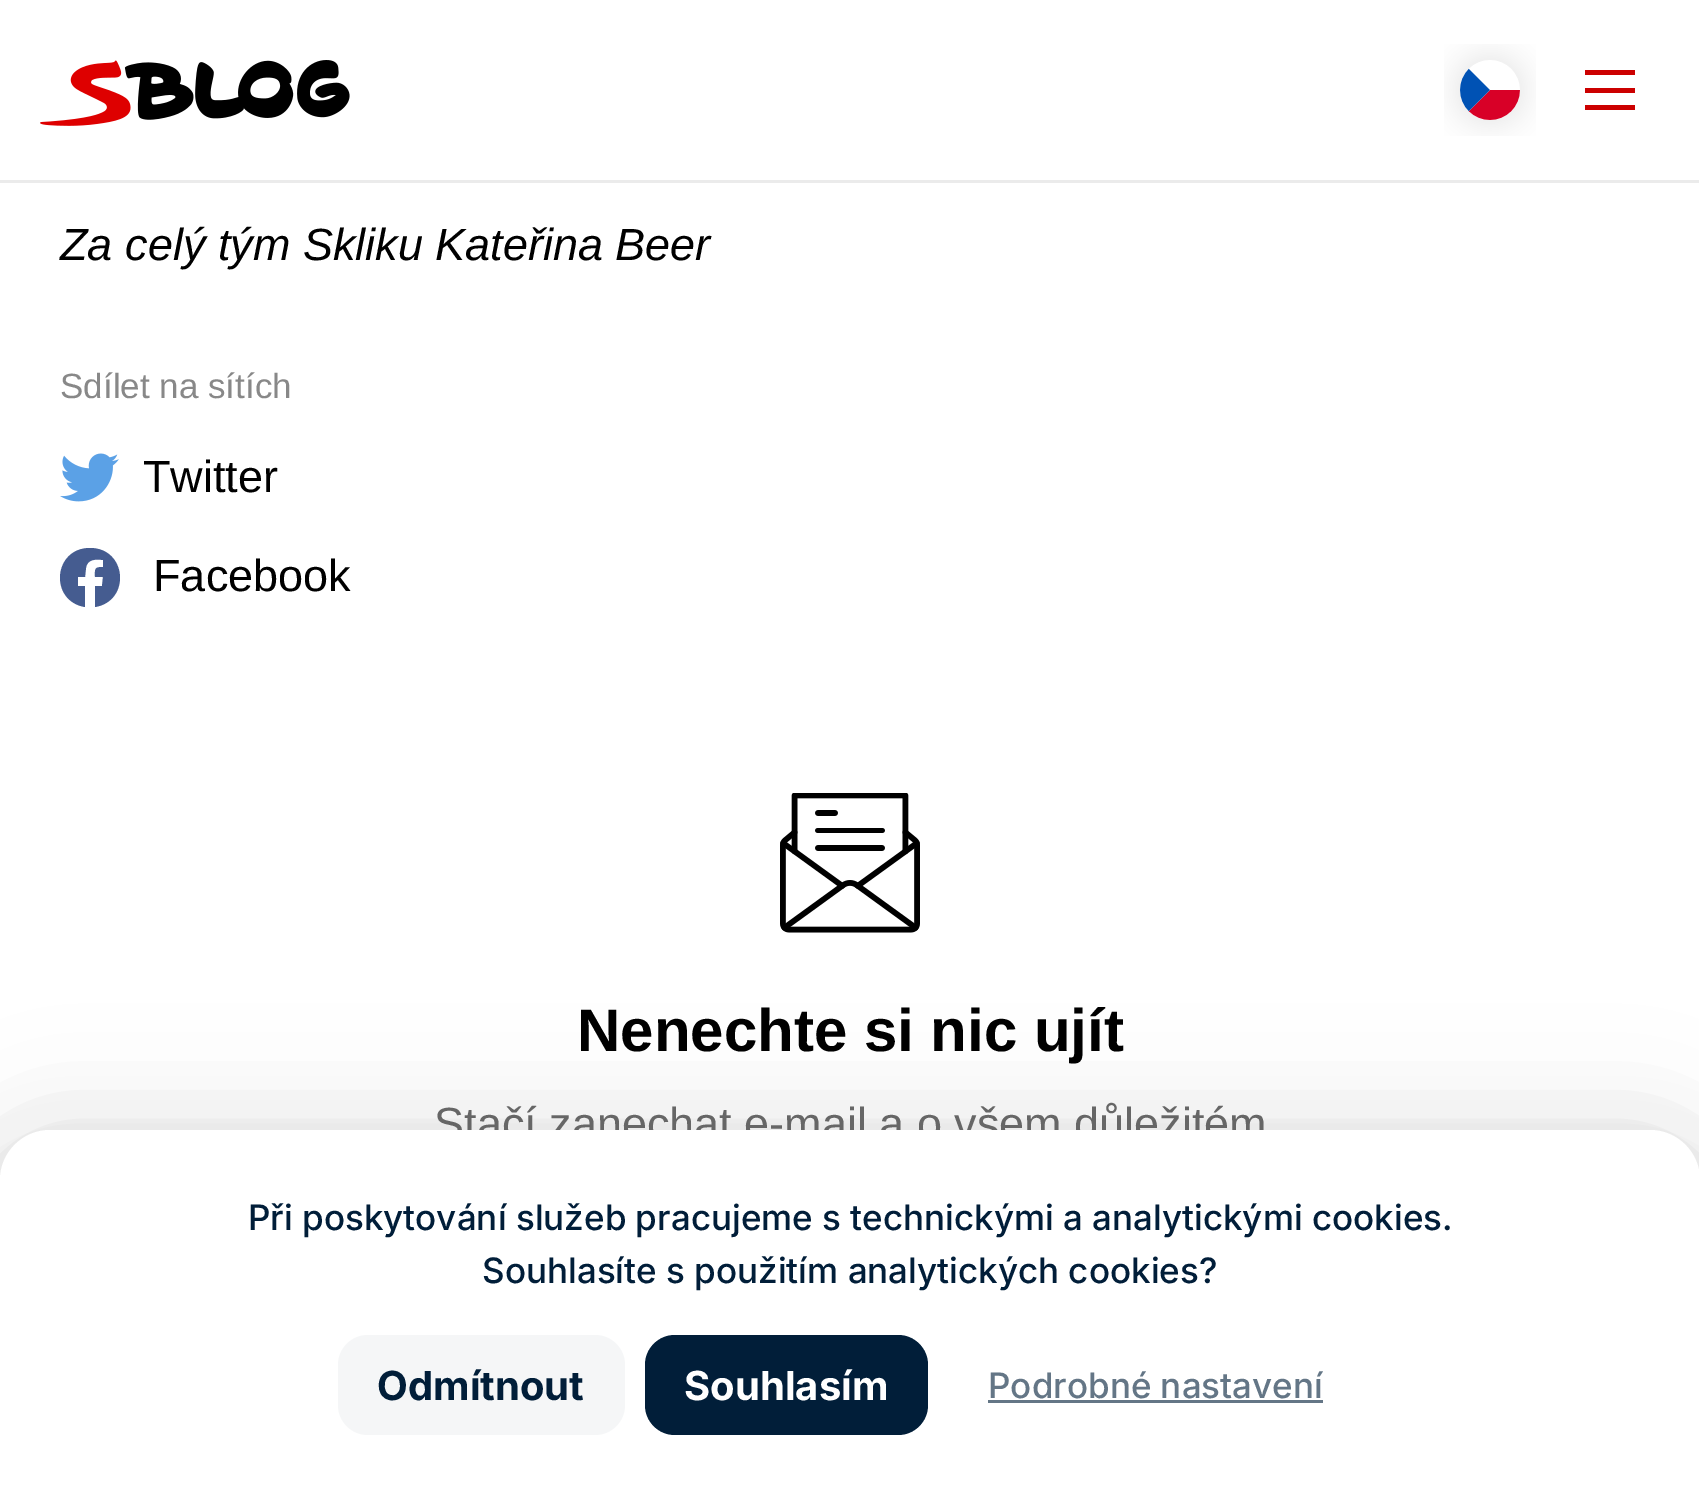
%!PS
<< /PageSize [1699 1493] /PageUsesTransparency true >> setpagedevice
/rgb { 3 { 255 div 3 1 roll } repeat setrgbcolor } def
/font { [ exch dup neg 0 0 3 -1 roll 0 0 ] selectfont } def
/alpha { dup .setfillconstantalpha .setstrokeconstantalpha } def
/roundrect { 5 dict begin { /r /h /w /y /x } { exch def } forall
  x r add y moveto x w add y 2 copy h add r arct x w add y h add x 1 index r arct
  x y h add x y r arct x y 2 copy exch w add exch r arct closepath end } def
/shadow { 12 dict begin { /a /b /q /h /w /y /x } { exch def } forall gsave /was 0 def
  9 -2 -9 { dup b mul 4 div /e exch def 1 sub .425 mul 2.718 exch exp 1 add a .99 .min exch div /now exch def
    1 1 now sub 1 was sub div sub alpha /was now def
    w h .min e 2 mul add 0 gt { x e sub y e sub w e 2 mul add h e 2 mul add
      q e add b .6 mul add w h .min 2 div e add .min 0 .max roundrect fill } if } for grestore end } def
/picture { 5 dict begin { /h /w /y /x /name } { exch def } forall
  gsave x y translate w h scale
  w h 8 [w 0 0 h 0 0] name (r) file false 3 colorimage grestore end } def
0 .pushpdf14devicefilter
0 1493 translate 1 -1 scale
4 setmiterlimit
255 255 255 rgb
0 0 1699 1493 rectfill
235 235 235 rgb
0 180 1699 3 rectfill
(img/1.rgb) 40 60 310 66 picture
(img/2.rgb) 1444 44 92 92 picture
[
  [1585 70 50 5 204 0 0]
  [1585 88 50 5 204 0 0]
  [1585 105 50 5 204 0 0]
] { aload pop rgb rectfill } forall
(img/3.rgb) 60 453 59 49 picture
69 92 144 rgb
90 548 moveto 53 548 49 601 85 607 curveto 85 586 lineto 78 586 lineto 78 577 lineto 85 577 lineto 86 568 lineto 87 559 96 559 103 560 curveto 103 567 lineto 94 567 95 569 95 577 curveto 103 577 lineto 102 586 lineto 95 586 lineto 95 607 lineto 131 601 127 548 90 548 curveto closepath fill
(img/4.rgb) 780 793 140 140 picture
0 0 0 rgb
-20 1133 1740 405 70 57.5 0.12 shadow
-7 1183 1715 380 58 47.5 0.14 shadow
/LiberationSans-Italic 45 font
60 260 moveto (Za celý tým Skliku Kateřina Beer) show
/LiberationSans-Regular 35 font
136 136 136 rgb
60 398 moveto (Sdílet na sítích) show
/LiberationSans-Regular 45 font
0 0 0 rgb
143 492 moveto (Twitter) show
153 591 moveto (Facebook) show
/LiberationSans-Bold 60 font
577 1051 moveto (Nenechte si nic ujít) show
/LiberationSans-Regular 45 font
102 102 102 rgb
434 1139 moveto (Stačí zanechat e-mail a o všem důležitém) show
255 255 255 rgb
50 1130 moveto 1650 1130 lineto 1677.5 1130 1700 1152.5 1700 1180 curveto 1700 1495 lineto 0 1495 lineto 0 1180 lineto 0 1152.5 22.5 1130 50 1130 curveto closepath fill
/Inter-Medium 35 font
1 30 57 rgb
248 1230 moveto (Při poskytování služeb pracujeme s technickými a analytickými cookies.) show
482 1283 moveto (Souhlasíte s použitím analytických cookies?) show
245 246 247 rgb
338 1335 287 100 30 roundrect fill
/Inter-Bold 40 font
1 30 57 rgb
377 1400 moveto (Odmítnout) show
645 1335 283 100 30 roundrect fill
255 255 255 rgb
684 1400 moveto (Souhlasím) show
/Inter-Medium 35 font
100 118 134 rgb
988 1398 moveto (Podrobné nastavení) show
988 1400 335 3 rectfill
.poppdf14devicefilter showpage
